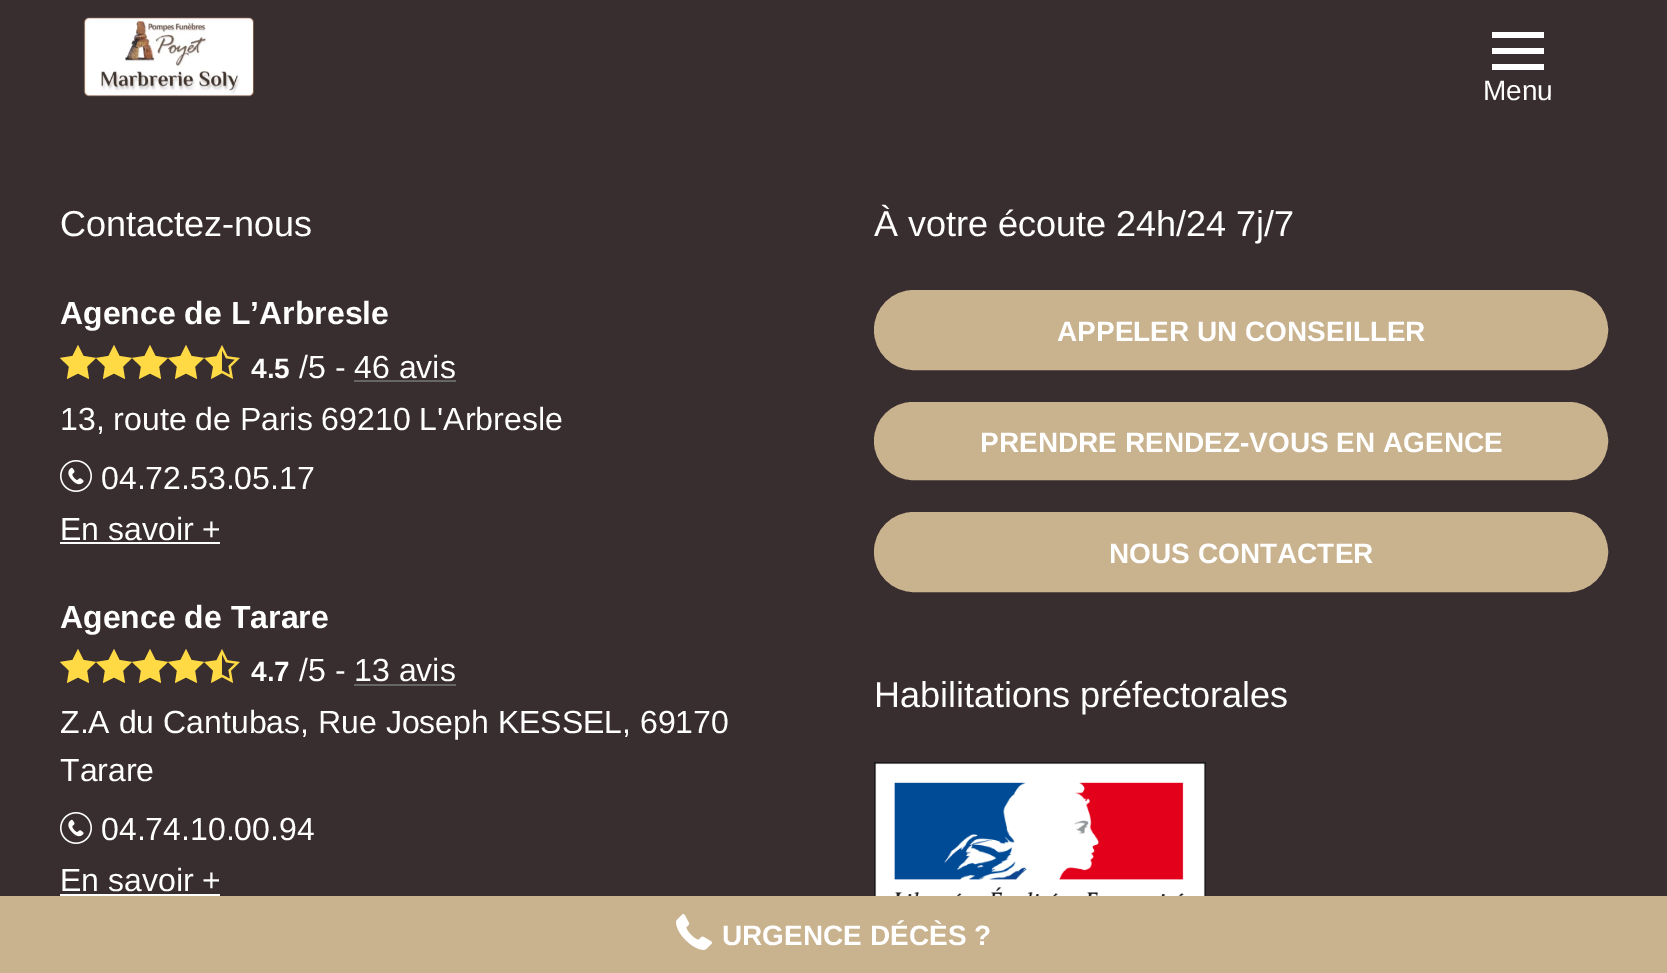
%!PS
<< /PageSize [1667 973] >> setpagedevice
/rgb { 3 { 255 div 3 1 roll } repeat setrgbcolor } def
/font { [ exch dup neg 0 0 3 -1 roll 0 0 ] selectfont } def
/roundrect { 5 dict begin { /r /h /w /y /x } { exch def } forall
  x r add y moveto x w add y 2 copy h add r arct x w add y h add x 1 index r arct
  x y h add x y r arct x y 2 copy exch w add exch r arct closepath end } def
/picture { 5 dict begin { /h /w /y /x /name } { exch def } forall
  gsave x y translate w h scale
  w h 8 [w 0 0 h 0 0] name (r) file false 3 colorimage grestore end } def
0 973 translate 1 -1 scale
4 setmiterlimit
57 46 47 rgb
0 0 1667 973 rectfill
(img/1.rgb) 83 17 171 80 picture
[
  [1492 48 52 6 255 255 255]
  [1492 32 52 6 255 255 255]
  [1492 64 52 6 255 255 255]
] { aload pop rgb rectfill } forall
255 218 68 rgb
96 358 moveto 83.5 356 lineto 78 345 lineto 72.5 356 lineto 60 358 lineto 69 366.5 lineto 67 379 lineto 78 373.5 lineto 89 379 lineto 87 366.5 lineto closepath fill
132 358 moveto 119.5 356 lineto 114 345 lineto 108.5 356 lineto 96 358 lineto 105 366.5 lineto 103 379 lineto 114 373.5 lineto 125 379 lineto 123 366.5 lineto closepath fill
168 358 moveto 155.5 356 lineto 150 345 lineto 144.5 356 lineto 132 358 lineto 141 366.5 lineto 139 379 lineto 150 373.5 lineto 161 379 lineto 159 366.5 lineto closepath fill
204 358 moveto 191.5 356 lineto 186 345 lineto 180.5 356 lineto 168 358 lineto 177 366.5 lineto 175 379 lineto 186 373.5 lineto 197 379 lineto 195 366.5 lineto closepath fill
(img/2.rgb) 204 345 36 34 picture
102 102 102 rgb
354 380 102 2 rectfill
(img/3.rgb) 60 460 32 32 picture
255 255 255 rgb
60 542 160 2 rectfill
255 218 68 rgb
96 662 moveto 83.5 660 lineto 78 649 lineto 72.5 660 lineto 60 662 lineto 69 670.5 lineto 67 683 lineto 78 677.5 lineto 89 683 lineto 87 670.5 lineto closepath fill
132 662 moveto 119.5 660 lineto 114 649 lineto 108.5 660 lineto 96 662 lineto 105 670.5 lineto 103 683 lineto 114 677.5 lineto 125 683 lineto 123 670.5 lineto closepath fill
168 662 moveto 155.5 660 lineto 150 649 lineto 144.5 660 lineto 132 662 lineto 141 670.5 lineto 139 683 lineto 150 677.5 lineto 161 683 lineto 159 670.5 lineto closepath fill
204 662 moveto 191.5 660 lineto 186 649 lineto 180.5 660 lineto 168 662 lineto 177 670.5 lineto 175 683 lineto 186 677.5 lineto 197 683 lineto 195 670.5 lineto closepath fill
(img/2.rgb) 204 649 36 34 picture
102 102 102 rgb
354 684 102 2 rectfill
(img/3.rgb) 60 812 32 32 picture
255 255 255 rgb
60 894 160 2 rectfill
201 178 142 rgb
875 291 732 78 39 roundrect gsave fill grestore
2 setlinewidth
stroke
875 403 732 76 38 roundrect gsave fill grestore
stroke
875 513 732 78 39 roundrect gsave fill grestore
stroke
(img/4.rgb) 874 762 332 134 picture
0 896 1667 77 rectfill
(img/5.rgb) 676 914 36 36 picture
/LiberationSans-Regular 28 font
255 255 255 rgb
1483 100 moveto (Menu) show
/LiberationSans-Regular 36 font
60 236 moveto (Contactez-nous) show
/LiberationSans-Bold 32 font
60 324 moveto (Agence de L’Arbresle) show
/LiberationSans-Bold 28 font
251 378 moveto (4.5) show
/LiberationSans-Regular 32 font
[
  [(/5 - 46 avis) 299 378]
  [(13, route de Paris 69210 L'Arbresle) 60 430]
  [(04.72.53.05.17) 101 489]
  [(En savoir +) 60 540]
] { aload pop moveto show } forall
/LiberationSans-Bold 32 font
60 628 moveto (Agence de Tarare) show
/LiberationSans-Bold 28 font
251 681 moveto (4.7) show
/LiberationSans-Regular 32 font
[
  [(/5 - 13 avis) 299 681]
  [(Z.A du Cantubas, Rue Joseph KESSEL, 69170) 60 733]
  [(Tarare) 60 781]
  [(04.74.10.00.94) 101 840]
  [(En savoir +) 60 891]
] { aload pop moveto show } forall
/LiberationSans-Regular 36 font
874 236 moveto (À votre écoute 24h/24 7j/7) show
/LiberationSans-Bold 28 font
[
  [(APPELER UN CONSEILLER) 1057 341]
  [(PRENDRE RENDEZ-VOUS EN AGENCE) 980 452]
  [(NOUS CONTACTER) 1109 563]
] { aload pop moveto show } forall
/LiberationSans-Regular 36 font
874 707 moveto (Habilitations préfectorales) show
/LiberationSans-Bold 28 font
722 945 moveto (URGENCE DÉCÈS ?) show
showpage
